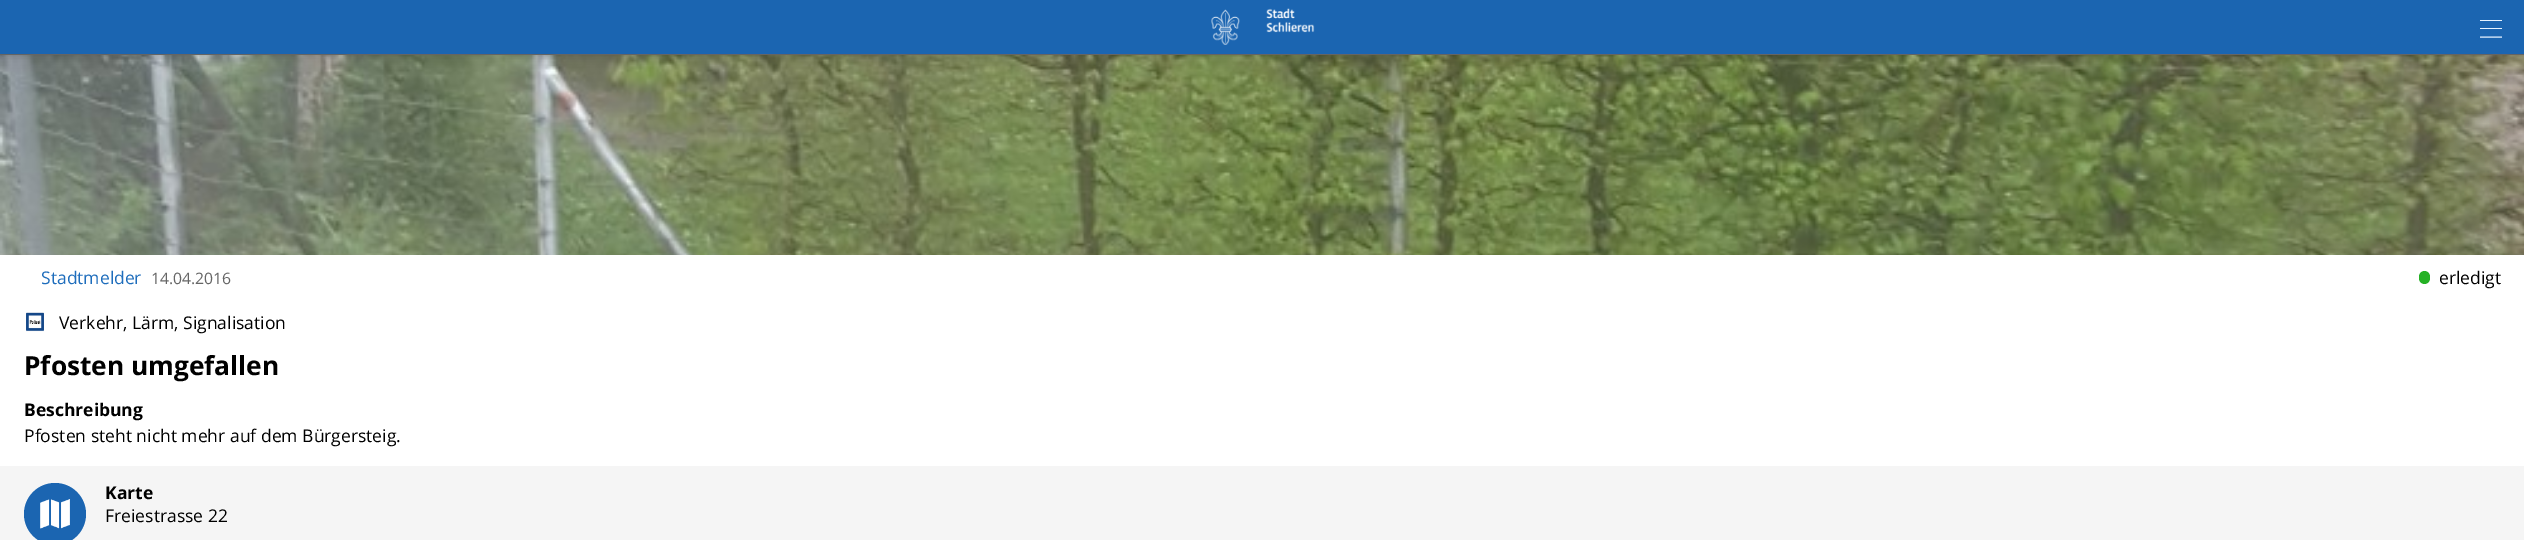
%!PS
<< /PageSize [2524 540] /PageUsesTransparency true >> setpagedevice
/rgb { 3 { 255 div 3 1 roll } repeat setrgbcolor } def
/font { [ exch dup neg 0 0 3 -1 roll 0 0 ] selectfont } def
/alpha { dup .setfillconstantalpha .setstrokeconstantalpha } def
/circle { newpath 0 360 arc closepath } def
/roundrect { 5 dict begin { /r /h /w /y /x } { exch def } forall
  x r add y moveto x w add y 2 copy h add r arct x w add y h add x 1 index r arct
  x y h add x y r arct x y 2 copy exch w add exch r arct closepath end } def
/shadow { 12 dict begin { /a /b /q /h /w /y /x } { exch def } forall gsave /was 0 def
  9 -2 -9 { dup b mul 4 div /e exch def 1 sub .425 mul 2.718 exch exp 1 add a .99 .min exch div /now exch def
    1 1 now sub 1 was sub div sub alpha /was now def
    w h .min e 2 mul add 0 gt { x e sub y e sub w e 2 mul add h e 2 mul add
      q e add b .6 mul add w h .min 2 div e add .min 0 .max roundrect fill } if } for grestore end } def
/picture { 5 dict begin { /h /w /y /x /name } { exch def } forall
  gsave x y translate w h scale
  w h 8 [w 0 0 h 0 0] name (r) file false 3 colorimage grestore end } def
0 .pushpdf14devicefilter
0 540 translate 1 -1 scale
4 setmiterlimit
255 255 255 rgb
0 0 2524 540 rectfill
(img/2.rgb) 0 55 2524 200 picture
0 0 0 rgb
0 0 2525 55 0 6 0.2 shadow
27 101 177 rgb
0 0 2524 54 rectfill
100 100 100 rgb
0 54 2524 1 rectfill
(img/1.rgb) 1211 8 104 37 picture
229 242 255 rgb
2480 20 22 1 rectfill
2480 28 22 1 rectfill
1.1 setlinewidth
1 setlinejoin
2480 37 moveto 2502 37 lineto stroke
37 177 37 rgb
2419 271 11 13 5.5 roundrect fill
(img/3.rgb) 26 312 18 20 picture
245 245 245 rgb
0 466 2524 74 rectfill
27 101 177 rgb
55 514 31 circle fill
(img/4.rgb) 40 499 30 30 picture
/OpenSans-Regular 17.5 font
30 109 188 rgb
41 284 moveto (Stadtmelder) show
/OpenSans-Regular 15.75 font
102 102 102 rgb
151 284 moveto (14.04.2016) show
/OpenSans-Regular 17.5 font
0 0 0 rgb
2439 284 moveto (erledigt) show
59 329 moveto (Verkehr, Lärm, Signalisation) show
/OpenSans-Bold 26.25 font
24 375 moveto (Pfosten umgefallen) show
/OpenSans-Bold 17.5 font
24 416 moveto (Beschreibung) show
/OpenSans-Regular 17.5 font
24 442 moveto (Pfosten steht nicht mehr auf dem Bürgersteig.) show
/OpenSans-Bold 17.5 font
105 499 moveto (Karte) show
/OpenSans-Regular 17.5 font
105 522 moveto (Freiestrasse 22) show
.poppdf14devicefilter showpage
